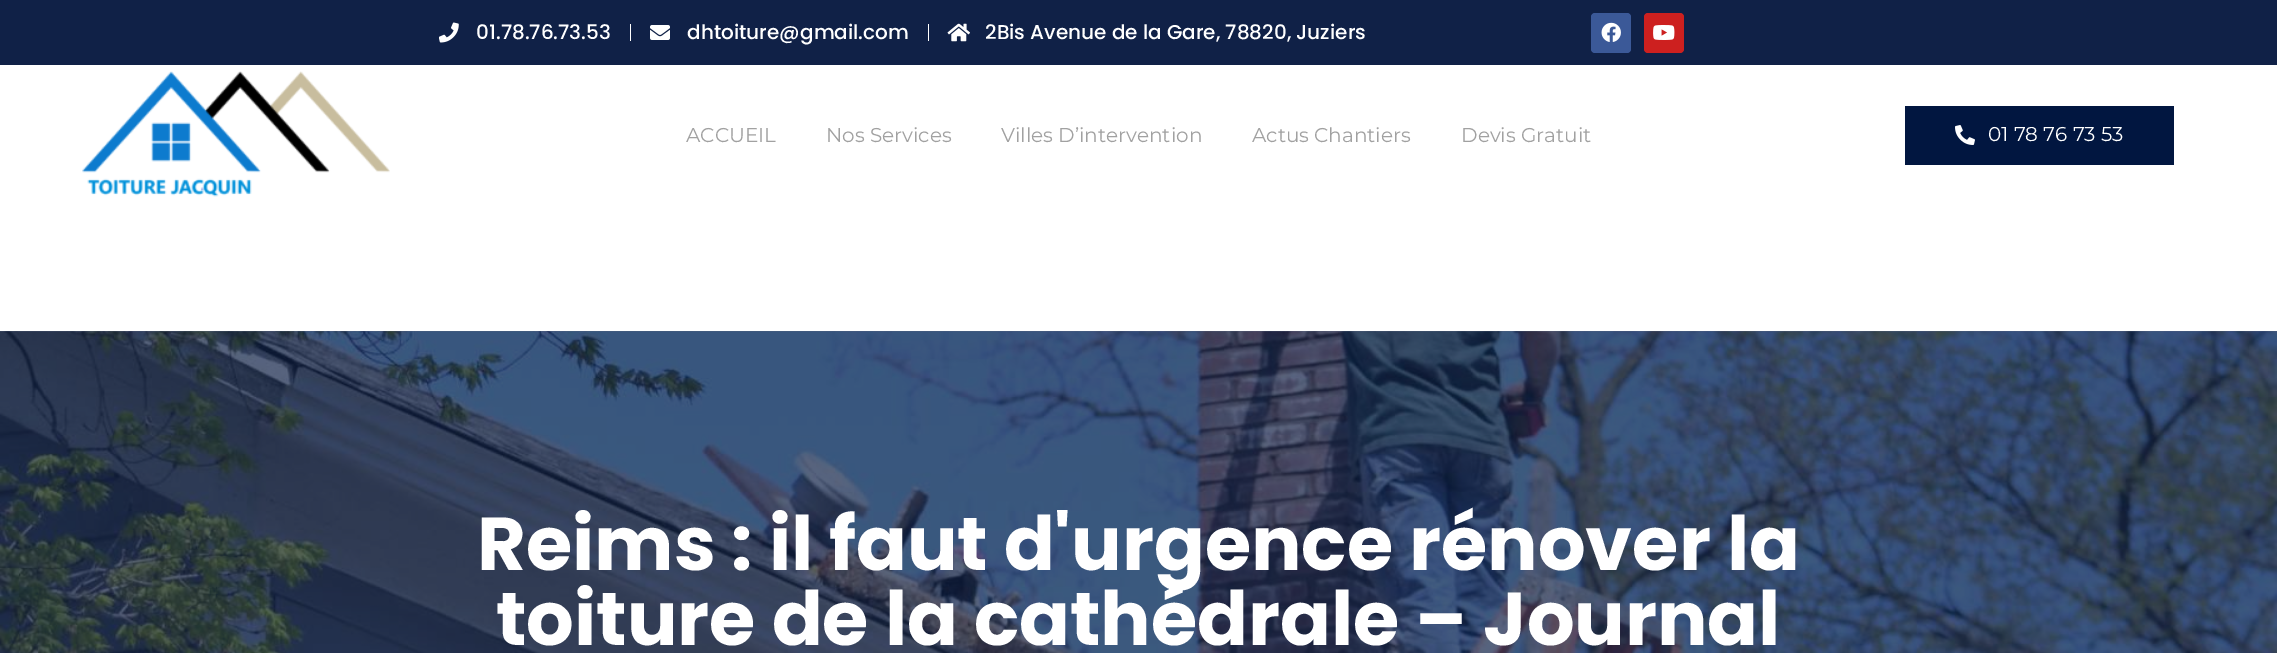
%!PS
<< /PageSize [2277 653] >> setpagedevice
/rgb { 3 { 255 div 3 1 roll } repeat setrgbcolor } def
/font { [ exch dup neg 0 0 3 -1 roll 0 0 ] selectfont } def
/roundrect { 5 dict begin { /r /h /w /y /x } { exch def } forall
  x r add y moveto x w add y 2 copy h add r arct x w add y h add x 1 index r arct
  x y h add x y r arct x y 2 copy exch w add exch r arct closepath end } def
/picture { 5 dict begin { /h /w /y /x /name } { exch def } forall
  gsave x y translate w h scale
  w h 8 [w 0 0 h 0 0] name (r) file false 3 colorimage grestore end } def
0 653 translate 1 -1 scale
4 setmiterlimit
255 255 255 rgb
0 0 2277 653 rectfill
16 33 71 rgb
0 0 2277 65 rectfill
(img/1.rgb) 439 22 20 21 picture
255 255 255 rgb
630 24 1 17 rectfill
(img/2.rgb) 650 25 20 15 picture
928 24 1 17 rectfill
(img/3.rgb) 947 23 23 19 picture
59 89 152 rgb
1591 13 40 40 4 roundrect fill
(img/4.rgb) 1601 22 20 20 picture
205 32 31 rgb
1644 13 40 40 4 roundrect fill
(img/5.rgb) 1653 25 22 15 picture
(img/6.rgb) 82 71 308 126 picture
1 22 64 rgb
1905 106 269 59 rectfill
(img/7.rgb) 1955 125 20 20 picture
(img/8.rgb) 0 331 2277 322 picture
/Poppins-Medium 20 font
255 255 255 rgb
[
  [(01.78.76.73.53) 476 39]
  [(dhtoiture@gmail.com) 687 39]
  [(2Bis Avenue de la Gare, 78820, Juziers) 985 39]
] { aload pop moveto show } forall
/Montserrat-Regular 20 font
161 161 161 rgb
[
  [(ACCUEIL) 686 142]
  [(Nos Services) 826 142]
  [(Villes D’intervention) 1001 142]
  [(Actus Chantiers) 1252 142]
  [(Devis Gratuit) 1461 142]
] { aload pop moveto show } forall
255 255 255 rgb
1988 141 moveto (01 78 76 73 53) show
/Poppins-Bold 75 font
477 570 moveto (Reims : il faut d'urgence rénover la) show
496 645 moveto (toiture de la cathédrale – Journal) show
showpage
